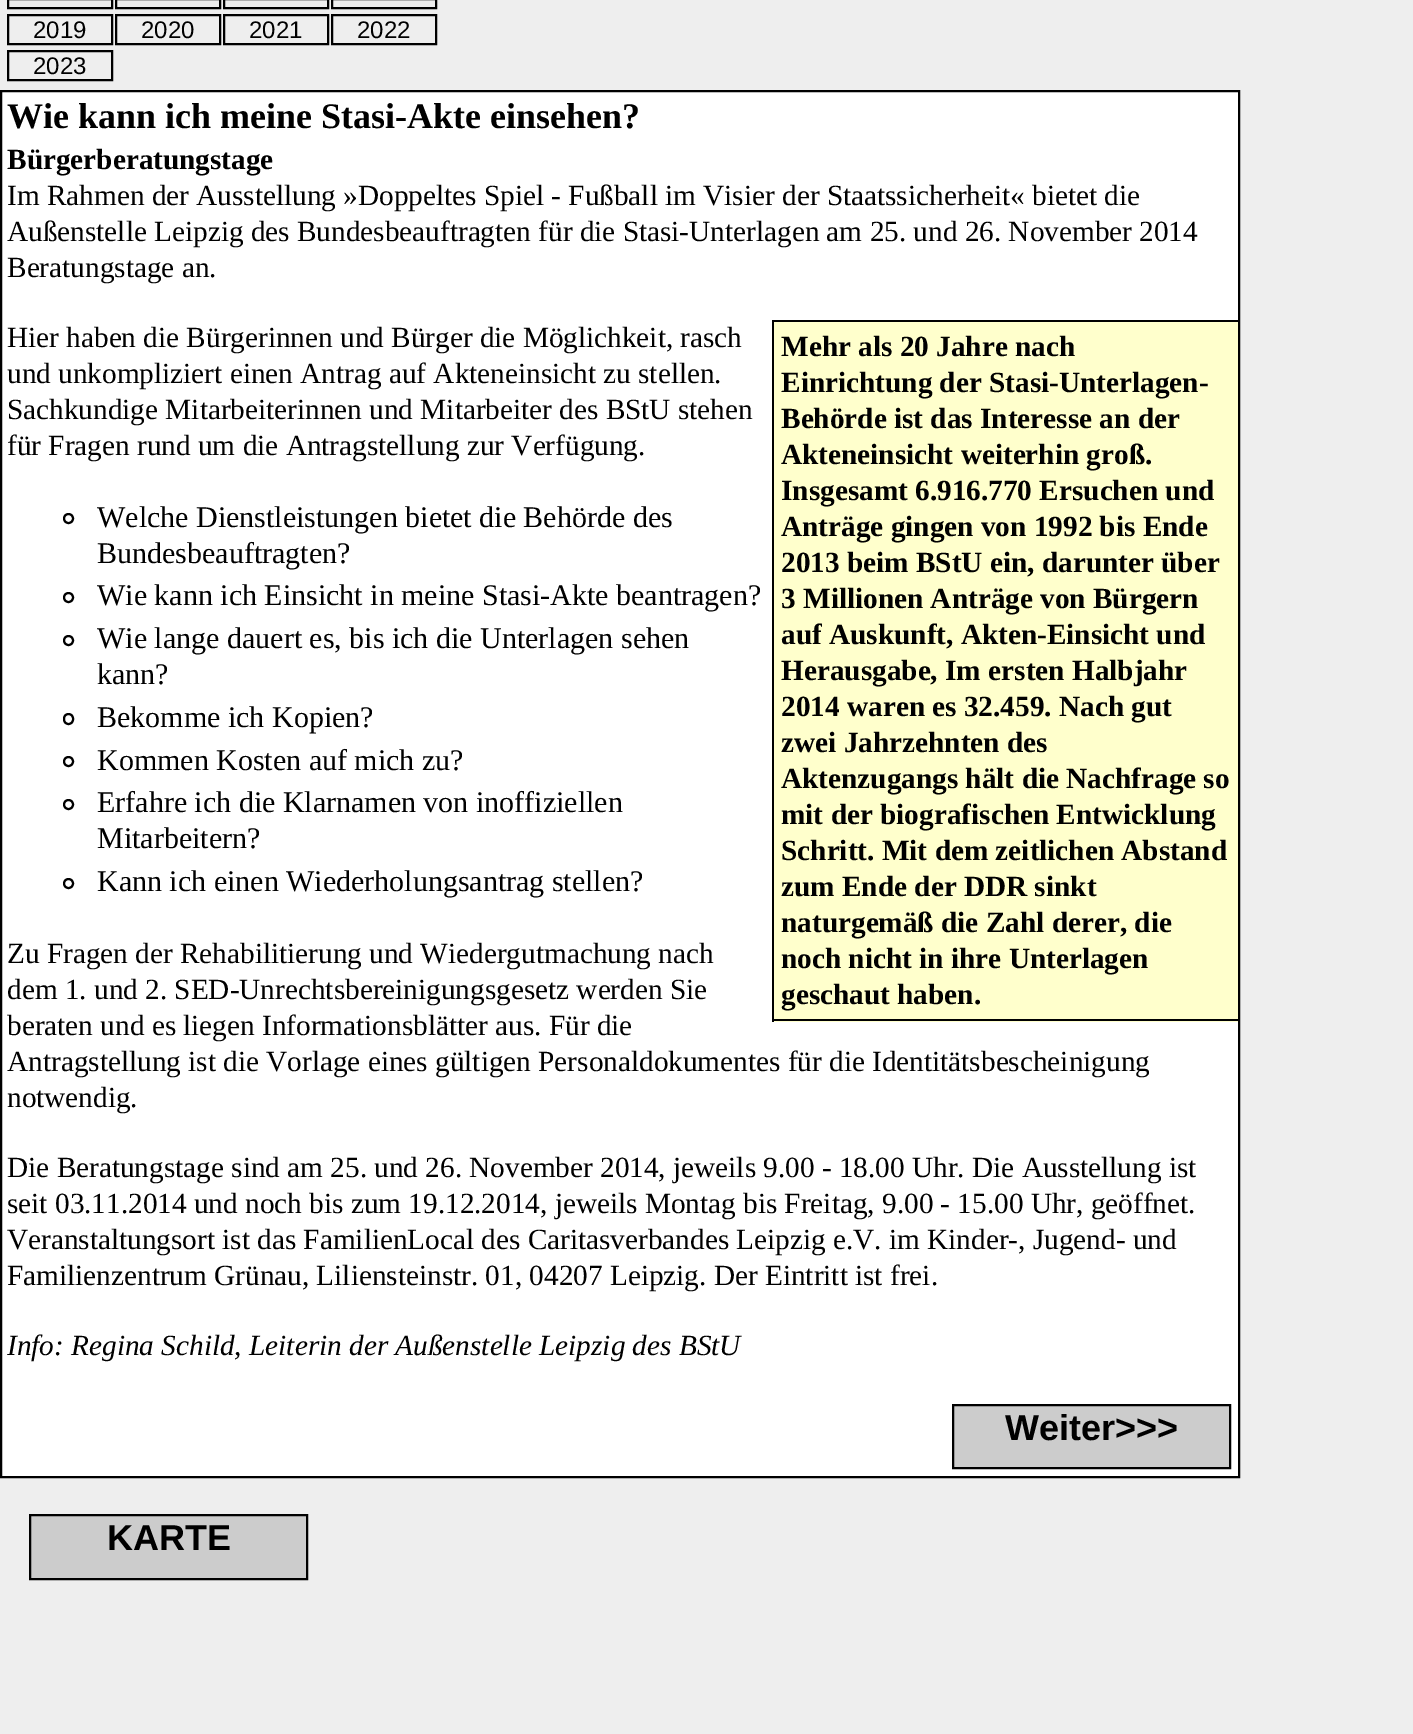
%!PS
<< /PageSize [1413 1734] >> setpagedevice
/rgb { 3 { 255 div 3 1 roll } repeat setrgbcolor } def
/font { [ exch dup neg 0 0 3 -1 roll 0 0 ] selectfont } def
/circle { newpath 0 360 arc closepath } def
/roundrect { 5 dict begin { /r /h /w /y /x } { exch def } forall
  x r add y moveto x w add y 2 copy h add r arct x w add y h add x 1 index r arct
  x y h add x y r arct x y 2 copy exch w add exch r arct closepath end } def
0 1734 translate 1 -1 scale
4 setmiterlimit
238 238 238 rgb
0 0 1413 1734 rectfill
0 0 0 rgb
2 setlinewidth
8 -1 104 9 rectstroke
116 -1 104 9 rectstroke
224 -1 104 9 rectstroke
332 -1 104 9 rectstroke
8 15 104 29 rectstroke
116 15 104 29 rectstroke
224 15 104 29 rectstroke
332 15 104 29 rectstroke
8 51 104 29 rectstroke
255 255 255 rgb
1 91 moveto 1239 91 lineto 1239 1477 lineto 1 1477 lineto closepath gsave fill grestore
0 0 0 rgb
stroke
[
  [774 322 464 700 255 255 204]
  [772 320 466 2 0 0 0]
  [772 1019 466 2 0 0 0]
  [772 320 2 702 0 0 0]
] { aload pop rgb rectfill } forall
68.5 518.5 4.5 circle stroke
68.5 597.5 4.5 circle stroke
68.5 640.5 4.5 circle stroke
64 714 9 10 4.5 roundrect stroke
68.5 761.5 4.5 circle stroke
68.5 804.5 4.5 circle stroke
68.5 883.5 4.5 circle stroke
204 204 204 rgb
953 1405 moveto 1230 1405 lineto 1230 1468 lineto 953 1468 lineto closepath gsave fill grestore
0 0 0 rgb
stroke
204 204 204 rgb
30 1515 moveto 307 1515 lineto 307 1579 lineto 30 1579 lineto closepath gsave fill grestore
0 0 0 rgb
stroke
/LiberationSans-Regular 24 font
[
  [(2019) 33 38]
  [(2020) 141 38]
  [(2021) 249 38]
  [(2022) 357 38]
  [(2023) 33 74]
] { aload pop moveto show } forall
/LiberationSerif-Bold 36 font
7 128 moveto (Wie kann ich meine Stasi-Akte einsehen?) show
/LiberationSerif-Bold 29.25 font
7 169 moveto (Bürgerberatungstage) show
/LiberationSerif-Regular 29.25 font
[
  [(Im Rahmen der Ausstellung »Doppeltes Spiel - Fußball im Visier der Staatssicherheit« bietet die) 7 205]
  [(Außenstelle Leipzig des Bundesbeauftragten für die Stasi-Unterlagen am 25. und 26. November 2014) 7 241]
  [(Beratungstage an.) 7 277]
  [(Hier haben die Bürgerinnen und Bürger die Möglichkeit, rasch) 7 347]
  [(und unkompliziert einen Antrag auf Akteneinsicht zu stellen.) 7 383]
  [(Sachkundige Mitarbeiterinnen und Mitarbeiter des BStU stehen) 7 419]
  [(für Fragen rund um die Antragstellung zur Verfügung.) 7 455]
] { aload pop moveto show } forall
/LiberationSerif-Bold 29.25 font
[
  [(Mehr als 20 Jahre nach) 781 356]
  [(Einrichtung der Stasi-Unterlagen-) 781 392]
  [(Behörde ist das Interesse an der) 781 428]
  [(Akteneinsicht weiterhin groß.) 781 464]
  [(Insgesamt 6.916.770 Ersuchen und) 781 500]
  [(Anträge gingen von 1992 bis Ende) 781 536]
  [(2013 beim BStU ein, darunter über) 781 572]
  [(3 Millionen Anträge von Bürgern) 781 608]
  [(auf Auskunft, Akten-Einsicht und) 781 644]
  [(Herausgabe, Im ersten Halbjahr) 781 680]
  [(2014 waren es 32.459. Nach gut) 781 716]
  [(zwei Jahrzehnten des) 781 752]
  [(Aktenzugangs hält die Nachfrage so) 781 788]
  [(mit der biografischen Entwicklung) 781 824]
  [(Schritt. Mit dem zeitlichen Abstand) 781 860]
  [(zum Ende der DDR sinkt) 781 896]
  [(naturgemäß die Zahl derer, die) 781 932]
  [(noch nicht in ihre Unterlagen) 781 968]
  [(geschaut haben.) 781 1004]
] { aload pop moveto show } forall
/LiberationSerif-Regular 30 font
[
  [(Welche Dienstleistungen bietet die Behörde des) 97 527]
  [(Bundesbeauftragten?) 97 563]
  [(Wie kann ich Einsicht in meine Stasi-Akte beantragen?) 97 605]
  [(Wie lange dauert es, bis ich die Unterlagen sehen) 97 648]
  [(kann?) 97 684]
  [(Bekomme ich Kopien?) 97 727]
  [(Kommen Kosten auf mich zu?) 97 770]
  [(Erfahre ich die Klarnamen von inoffiziellen) 97 812]
  [(Mitarbeitern?) 97 848]
  [(Kann ich einen Wiederholungsantrag stellen?) 97 891]
] { aload pop moveto show } forall
/LiberationSerif-Regular 29.25 font
[
  [(Zu Fragen der Rehabilitierung und Wiedergutmachung nach) 7 963]
  [(dem 1. und 2. SED-Unrechtsbereinigungsgesetz werden Sie) 7 999]
  [(beraten und es liegen Informationsblätter aus. Für die) 7 1035]
  [(Antragstellung ist die Vorlage eines gültigen Personaldokumentes für die Identitätsbescheinigung) 7 1071]
  [(notwendig.) 7 1107]
  [(Die Beratungstage sind am 25. und 26. November 2014, jeweils 9.00 - 18.00 Uhr. Die Ausstellung ist) 7 1177]
  [(seit 03.11.2014 und noch bis zum 19.12.2014, jeweils Montag bis Freitag, 9.00 - 15.00 Uhr, geöffnet.) 7 1213]
  [(Veranstaltungsort ist das FamilienLocal des Caritasverbandes Leipzig e.V. im Kinder-, Jugend- und) 7 1249]
  [(Familienzentrum Grünau, Liliensteinstr. 01, 04207 Leipzig. Der Eintritt ist frei.) 7 1285]
] { aload pop moveto show } forall
/LiberationSerif-Italic 29.25 font
7 1355 moveto (Info: Regina Schild, Leiterin der Außenstelle Leipzig des BStU) show
/LiberationSans-Bold 36 font
1005 1440 moveto (Weiter>>>) show
107 1550 moveto (KARTE) show
showpage
